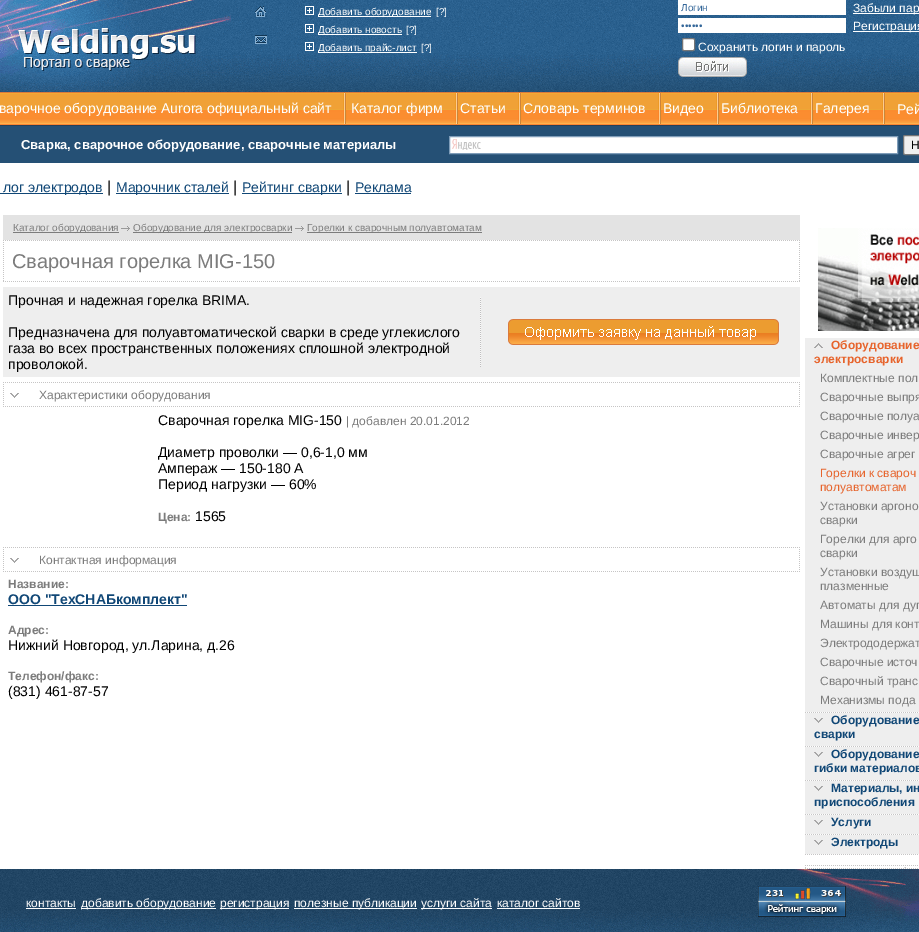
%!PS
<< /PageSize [919 932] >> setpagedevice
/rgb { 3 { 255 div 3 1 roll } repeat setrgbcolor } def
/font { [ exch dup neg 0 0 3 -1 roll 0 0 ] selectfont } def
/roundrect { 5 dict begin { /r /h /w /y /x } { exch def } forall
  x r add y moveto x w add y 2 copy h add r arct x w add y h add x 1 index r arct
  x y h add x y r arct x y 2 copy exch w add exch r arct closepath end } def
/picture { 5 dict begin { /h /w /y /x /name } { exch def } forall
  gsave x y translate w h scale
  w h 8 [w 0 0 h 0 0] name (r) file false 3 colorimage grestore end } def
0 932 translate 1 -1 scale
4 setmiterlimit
255 255 255 rgb
0 0 919 932 rectfill
(img/1.rgb) 0 0 919 92 picture
(img/2.rgb) 255 6 11 11 picture
(img/3.rgb) 255 35 12 9 picture
(img/4.rgb) 305 6 9 9 picture
318 16 113 1 rectfill
(img/5.rgb) 305 24 9 9 picture
318 34 84 1 rectfill
(img/6.rgb) 305 42 9 9 picture
[
  [318 52 99 1 255 255 255]
  [678 0 168 15 255 255 255]
  [853 13 66 1 255 255 255]
  [678 18 168 15 255 255 255]
  [853 31 66 1 255 255 255]
] { aload pop rgb rectfill } forall
682.5 38.5 12 12 1.5 roundrect gsave fill grestore
118 118 118 rgb
stroke
(img/7.rgb) 678 57 69 20 picture
(img/8.rgb) 0 92 919 34 picture
(img/9.rgb) 343 92 4 33 picture
(img/9.rgb) 455 92 4 33 picture
(img/9.rgb) 518 92 4 33 picture
(img/9.rgb) 658 92 4 33 picture
(img/9.rgb) 716 92 4 33 picture
(img/9.rgb) 810 92 4 33 picture
(img/9.rgb) 882 92 4 33 picture
37 80 117 rgb
0 126 919 37 rectfill
255 255 255 rgb
450 137 447 16 rectfill
(img/10.rgb) 452 139 29 11 picture
127 157 185 rgb
449.5 136.5 448 17 rectstroke
239 239 239 rgb
903.5 135.5 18 19 1.5 roundrect gsave fill grestore
118 118 118 rgb
stroke
[
  [0 193 103 1 16 71 118]
  [116 193 113 1 16 71 118]
  [242 193 100 1 16 71 118]
  [355 193 56 1 16 71 118]
  [3 215 797 25 227 227 227]
  [13 232 106 1 124 124 124]
] { aload pop rgb rectfill } forall
(img/11.rgb) 121 226 9 5 picture
133 232 159 1 rectfill
(img/11.rgb) 295 226 9 5 picture
307 232 175 1 rectfill
(img/12.rgb) 3 240 797 1 picture
(img/13.rgb) 3 242 1 39 picture
(img/13.rgb) 799 242 1 39 picture
(img/12.rgb) 3 281 797 1 picture
238 238 238 rgb
3 287 797 90 rectfill
(img/14.rgb) 480 297 1 70 picture
(img/15.rgb) 508 319 271 26 picture
(img/12.rgb) 3 382 797 1 picture
(img/16.rgb) 3 384 1 21 picture
(img/17.rgb) 10 393 9 5 picture
(img/16.rgb) 799 384 1 21 picture
(img/12.rgb) 3 406 797 1 picture
(img/12.rgb) 3 547 797 1 picture
(img/16.rgb) 3 549 1 21 picture
(img/17.rgb) 10 558 9 5 picture
(img/16.rgb) 799 549 1 21 picture
(img/12.rgb) 3 571 797 1 picture
16 71 118 rgb
8 605 179 1 rectfill
(img/18.rgb) 818 228 101 103 picture
238 238 238 rgb
805 338 114 374 rectfill
(img/19.rgb) 814 343 9 5 picture
(img/20.rgb) 805 712 113 1 picture
805 713 114 33 rectfill
(img/21.rgb) 814 718 9 5 picture
(img/20.rgb) 805 746 113 1 picture
805 747 114 33 rectfill
(img/21.rgb) 814 752 9 5 picture
(img/20.rgb) 805 780 113 1 picture
805 781 114 33 rectfill
(img/21.rgb) 814 786 9 5 picture
(img/20.rgb) 805 814 113 1 picture
805 815 114 19 rectfill
(img/21.rgb) 814 820 9 5 picture
(img/20.rgb) 805 834 113 1 picture
805 835 114 19 rectfill
(img/21.rgb) 814 840 9 5 picture
(img/20.rgb) 805 854 113 1 picture
(img/20.rgb) 805 865 113 1 picture
198 197 197 rgb
805 867 1 1 rectfill
(img/22.rgb) 904 867 2 1 picture
(img/20.rgb) 805 868 113 1 picture
(img/23.rgb) 0 869 919 63 picture
[
  [26 908 50 1 255 255 255]
  [81 908 135 1 255 255 255]
  [220 908 69 1 255 255 255]
  [294 908 123 1 255 255 255]
  [421 908 71 1 255 255 255]
  [497 908 83 1 255 255 255]
] { aload pop rgb rectfill } forall
(img/24.rgb) 758 886 88 31 picture
/LiberationSans-Regular 10 font
[
  [(Добавить оборудование) 318 15]
  [([?]) 436 15]
  [(Добавить новость) 318 33]
  [([?]) 406 33]
  [(Добавить прайс-лист) 318 51]
  [([?]) 421 51]
] { aload pop moveto show } forall
51 102 153 rgb
681 11 moveto (Логин) show
/LiberationSans-Regular 12 font
255 255 255 rgb
853 12 moveto (Забыли пар) show
/LiberationSans-Regular 10 font
51 102 153 rgb
681 29 moveto (••••••) show
/LiberationSans-Regular 12 font
255 255 255 rgb
853 30 moveto (Регистрация) show
698 51 moveto (Сохранить логин и пароль) show
/LiberationSans-Regular 14 font
[
  [(варочное оборудование Aurora официальный сайт) -1 113]
  [(Каталог фирм) 351 113]
  [(Статьи) 460 113]
  [(Словарь терминов) 523 113]
  [(Видео) 663 113]
  [(Библиотека) 721 113]
  [(Галерея) 815 113]
  [(Рей) 897 114]
] { aload pop moveto show } forall
/LiberationSans-Bold 13 font
21 149 moveto (Сварка, сварочное оборудование, сварочные материалы) show
/LiberationSans-Regular 12 font
0 0 0 rgb
911 149 moveto (Н) show
/LiberationSans-Regular 14 font
16 71 118 rgb
3 192 moveto (лог электродов) show
/LiberationSans-Regular 16 font
0 0 0 rgb
107 192 moveto (|) show
/LiberationSans-Regular 14 font
16 71 118 rgb
116 192 moveto (Марочник сталей) show
/LiberationSans-Regular 16 font
0 0 0 rgb
233 192 moveto (|) show
/LiberationSans-Regular 14 font
16 71 118 rgb
242 192 moveto (Рейтинг сварки) show
/LiberationSans-Regular 16 font
0 0 0 rgb
346 192 moveto (|) show
/LiberationSans-Regular 14 font
16 71 118 rgb
355 192 moveto (Реклама) show
/LiberationSans-Regular 10 font
124 124 124 rgb
[
  [(Каталог оборудования) 13 231]
  [(Оборудование для электросварки) 133 231]
  [(Горелки к сварочным полуавтоматам) 307 231]
] { aload pop moveto show } forall
/LiberationSans-Regular 20 font
12 268 moveto (Сварочная горелка MIG-150) show
/LiberationSans-Regular 14 font
0 0 0 rgb
[
  [(Прочная и надежная горелка BRIMA.) 8 305]
  [(Предназначена для полуавтоматической сварки в среде углекислого) 8 337]
  [(газа во всех пространственных положениях сплошной электродной) 8 353]
  [(проволокой.) 8 369]
] { aload pop moveto show } forall
/LiberationSans-Regular 12 font
124 124 124 rgb
39 399 moveto (Характеристики оборудования) show
/LiberationSans-Regular 14 font
0 0 0 rgb
158 425 moveto (Сварочная горелка MIG-150) show
/LiberationSans-Regular 12 font
124 124 124 rgb
346 425 moveto (| добавлен 20.01.2012) show
/LiberationSans-Regular 14 font
0 0 0 rgb
[
  [(Диаметр проволки — 0,6-1,0 мм) 158 457]
  [(Ампераж — 150-180 А) 158 473]
  [(Период нагрузки — 60%) 158 489]
] { aload pop moveto show } forall
/LiberationSans-Bold 12 font
124 124 124 rgb
158 521 moveto (Цена:) show
/LiberationSans-Regular 14 font
0 0 0 rgb
195 521 moveto (1565) show
/LiberationSans-Regular 12 font
124 124 124 rgb
39 564 moveto (Контактная информация) show
/LiberationSans-Bold 12 font
8 588 moveto (Название:) show
/LiberationSans-Bold 14 font
16 71 118 rgb
8 604 moveto (ООО "ТехСНАБкомплект") show
/LiberationSans-Bold 12 font
124 124 124 rgb
8 634 moveto (Адрес:) show
/LiberationSans-Regular 14 font
0 0 0 rgb
8 650 moveto (Нижний Новгород, ул.Ларина, д.26) show
/LiberationSans-Bold 12 font
124 124 124 rgb
8 680 moveto (Телефон/факс:) show
/LiberationSans-Regular 14 font
0 0 0 rgb
8 696 moveto (\(831\) 461-87-57) show
/LiberationSans-Bold 12 font
231 100 44 rgb
831 349 moveto (Оборудование) show
814 363 moveto (электросварки) show
/LiberationSans-Regular 12 font
124 124 124 rgb
[
  [(Комплектные пол) 820 382]
  [(Сварочные выпря) 820 401]
  [(Сварочные полуа) 820 420]
  [(Сварочные инвер) 820 439]
  [(Сварочные агрег) 820 458]
] { aload pop moveto show } forall
231 100 44 rgb
820 477 moveto (Горелки к свароч) show
820 491 moveto (полуавтоматам) show
124 124 124 rgb
[
  [(Установки аргоно) 820 510]
  [(сварки) 820 524]
  [(Горелки для арго) 820 543]
  [(сварки) 820 557]
  [(Установки воздуш) 820 576]
  [(плазменные) 820 590]
  [(Автоматы для дуг) 820 609]
  [(Машины для конт) 820 628]
  [(Электрододержат) 820 647]
  [(Сварочные источ) 820 666]
  [(Сварочный транс) 820 685]
  [(Механизмы пода) 820 704]
] { aload pop moveto show } forall
/LiberationSans-Bold 12 font
16 71 118 rgb
[
  [(Оборудование) 831 724]
  [(сварки) 814 738]
  [(Оборудование) 831 758]
  [(гибки материалов) 814 772]
  [(Материалы, ин) 831 792]
  [(приспособления) 814 806]
  [(Услуги) 831 826]
  [(Электроды) 831 846]
] { aload pop moveto show } forall
/LiberationSans-Regular 12 font
255 255 255 rgb
[
  [(контакты) 26 907]
  [(добавить оборудование) 81 907]
  [(регистрация) 220 907]
  [(полезные публикации) 294 907]
  [(услуги сайта) 421 907]
  [(каталог сайтов) 497 907]
] { aload pop moveto show } forall
showpage
